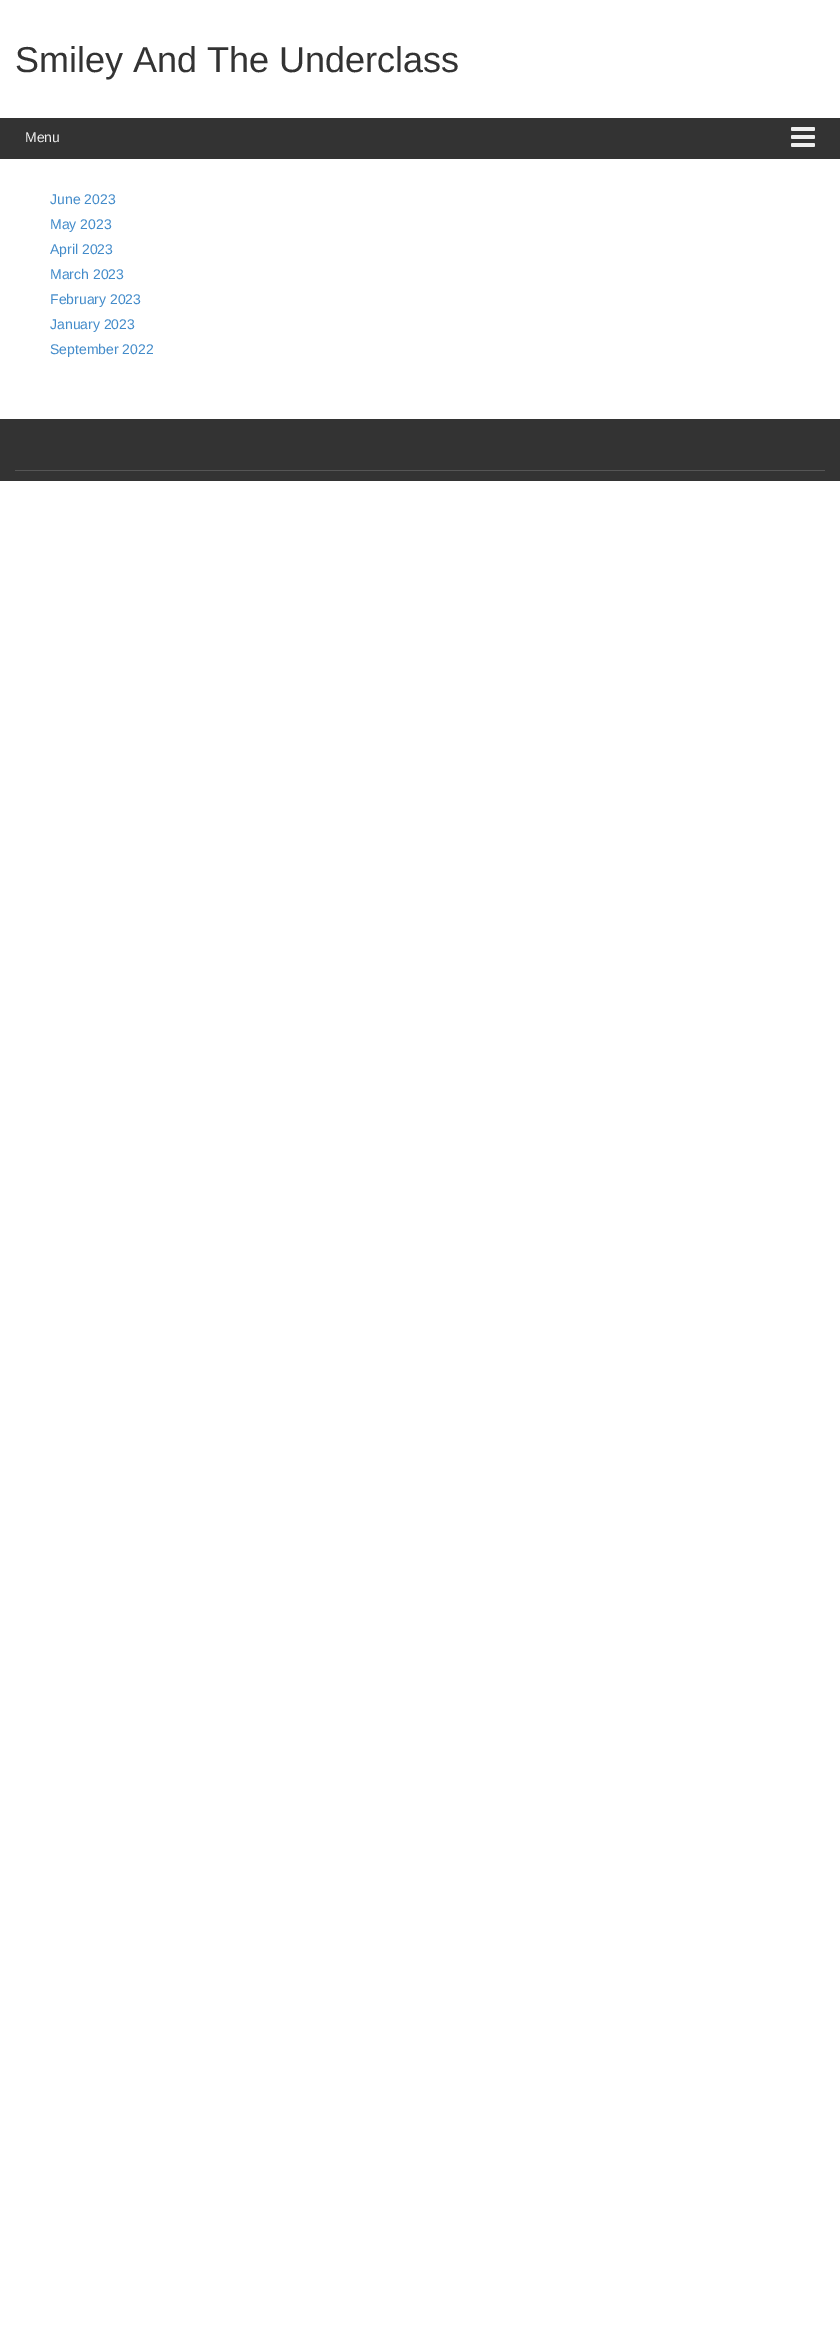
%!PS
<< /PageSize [840 2335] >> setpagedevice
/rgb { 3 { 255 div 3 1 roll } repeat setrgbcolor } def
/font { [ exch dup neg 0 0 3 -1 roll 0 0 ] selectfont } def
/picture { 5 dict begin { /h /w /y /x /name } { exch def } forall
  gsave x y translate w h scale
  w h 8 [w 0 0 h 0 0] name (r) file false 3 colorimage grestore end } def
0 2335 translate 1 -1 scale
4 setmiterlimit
255 255 255 rgb
0 0 840 2335 rectfill
51 51 51 rgb
0 118 840 41 rectfill
(img/1.rgb) 791 127 24 20 picture
0 419 840 62 rectfill
85 85 85 rgb
15 470 810 1 rectfill
/LiberationSans-Regular 36 font
51 51 51 rgb
15 72 moveto (Smiley And The Underclass) show
/LiberationSans-Regular 14 font
238 238 238 rgb
25 142 moveto (Menu) show
66 139 202 rgb
[
  [(June 2023) 50 204]
  [(May 2023) 50 229]
  [(April 2023) 50 254]
  [(March 2023) 50 279]
  [(February 2023) 50 304]
  [(January 2023) 50 329]
  [(September 2022) 50 354]
] { aload pop moveto show } forall
showpage
